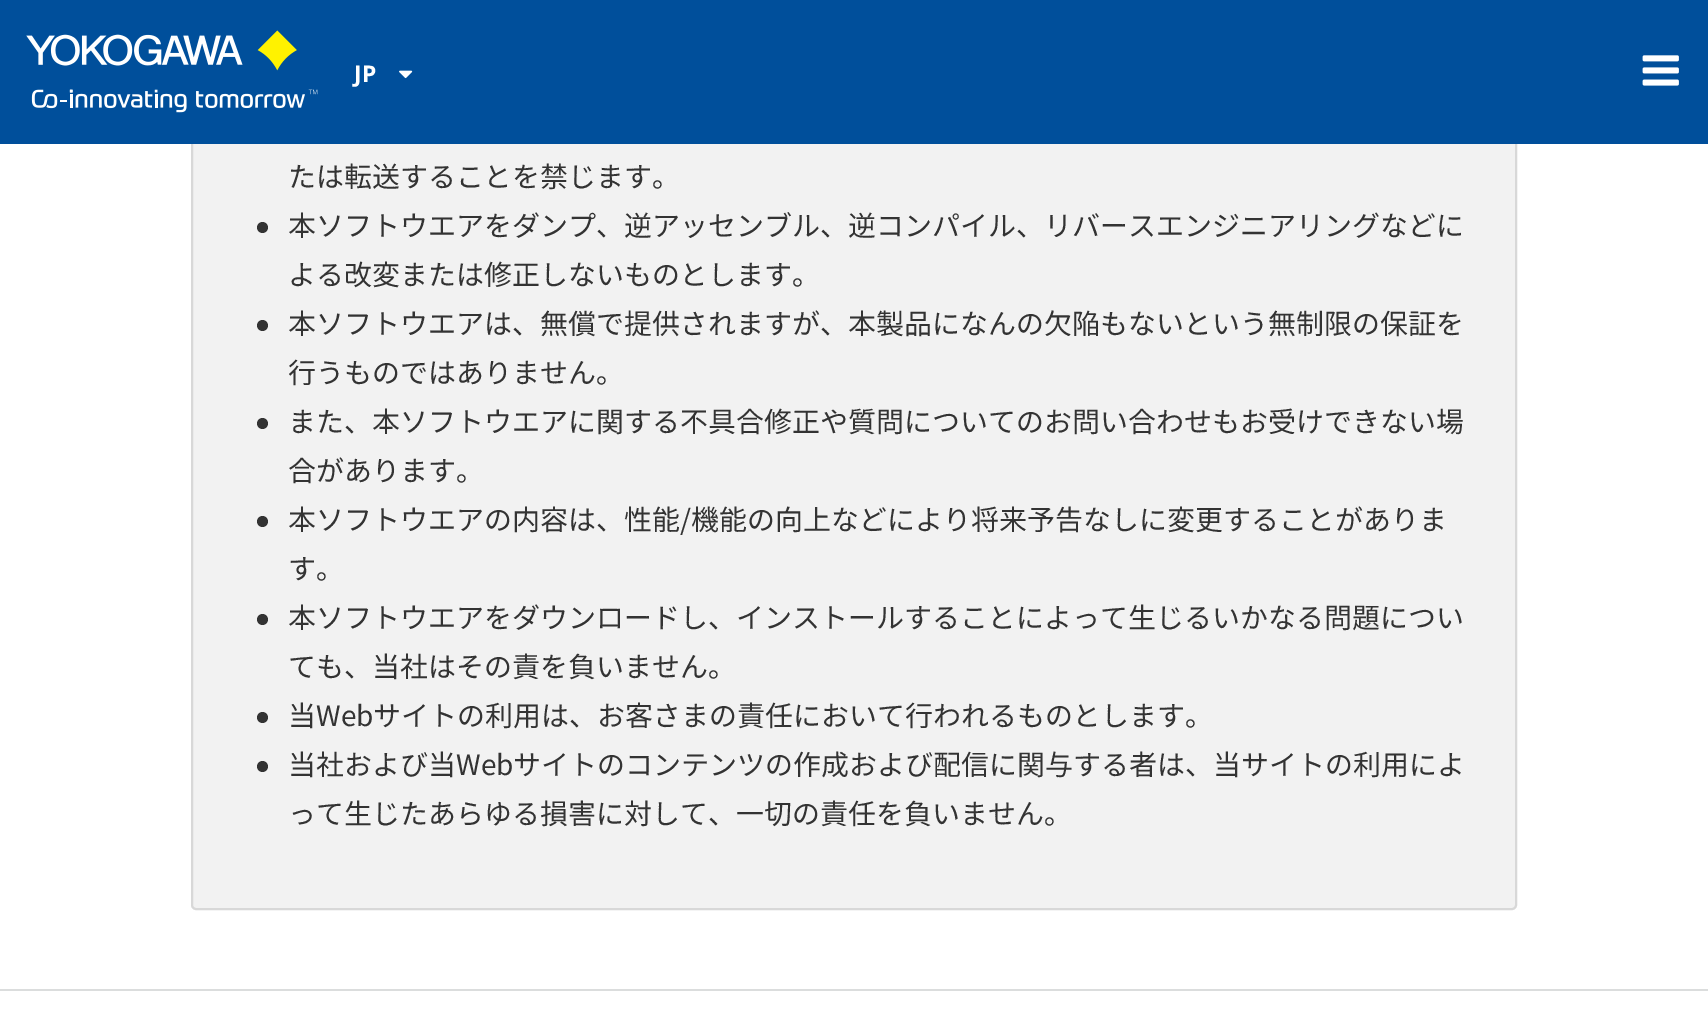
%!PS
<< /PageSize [1708 1031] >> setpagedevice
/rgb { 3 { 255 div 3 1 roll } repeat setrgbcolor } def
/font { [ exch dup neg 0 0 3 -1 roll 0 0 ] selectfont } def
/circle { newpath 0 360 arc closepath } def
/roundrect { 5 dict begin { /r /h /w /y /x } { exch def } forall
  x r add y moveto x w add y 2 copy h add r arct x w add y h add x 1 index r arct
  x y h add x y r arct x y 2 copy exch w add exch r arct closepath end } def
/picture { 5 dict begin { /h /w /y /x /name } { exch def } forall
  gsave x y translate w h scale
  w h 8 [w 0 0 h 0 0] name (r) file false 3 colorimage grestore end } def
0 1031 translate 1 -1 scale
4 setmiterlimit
255 255 255 rgb
0 0 1708 1031 rectfill
242 242 242 rgb
192 -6 1324 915 4 roundrect gsave fill grestore
216 216 216 rgb
2 setlinewidth
stroke
0 79 155 rgb
0 0 1708 144 rectfill
(img/1.rgb) 26 30 292 83 picture
(img/2.rgb) 399 70 14 9 picture
(img/3.rgb) 1642 55 37 31 picture
51 51 51 rgb
262.5 227.5 5.5 circle fill
262.5 325.5 5.5 circle fill
262.5 423.5 5.5 circle fill
262.5 521.5 5.5 circle fill
262.5 619.5 5.5 circle fill
262.5 717.5 5.5 circle fill
262.5 766.5 5.5 circle fill
219 221 221 rgb
0 989 1708 2 rectfill
/NotoSans-Bold 23 font
255 255 255 rgb
354 82 moveto (JP) show
/NotoSansJP-Regular 28 font
51 51 51 rgb
[
  [(たは転送することを禁じます。) 288 187]
  [(本ソフトウエアをダンプ、逆アッセンブル、逆コンパイル、リバースエンジニアリングなどに) 288 236]
  [(よる改変または修正しないものとします。) 288 285]
  [(本ソフトウエアは、無償で提供されますが、本製品になんの欠陥もないという無制限の保証を) 288 334]
  [(行うものではありません。) 288 383]
  [(また、本ソフトウエアに関する不具合修正や質問についてのお問い合わせもお受けできない場) 288 432]
  [(合があります。) 288 481]
  [(本ソフトウエアの内容は、性能/機能の向上などにより将来予告なしに変更することがありま) 288 530]
  [(す。) 288 579]
  [(本ソフトウエアをダウンロードし、インストールすることによって生じるいかなる問題につい) 288 628]
  [(ても、当社はその責を負いません。) 288 677]
  [(当Webサイトの利用は、お客さまの責任において行われるものとします。) 288 726]
  [(当社および当Webサイトのコンテンツの作成および配信に関与する者は、当サイトの利用によ) 288 775]
  [(って生じたあらゆる損害に対して、一切の責任を負いません。) 288 824]
] { aload pop moveto show } forall
showpage
